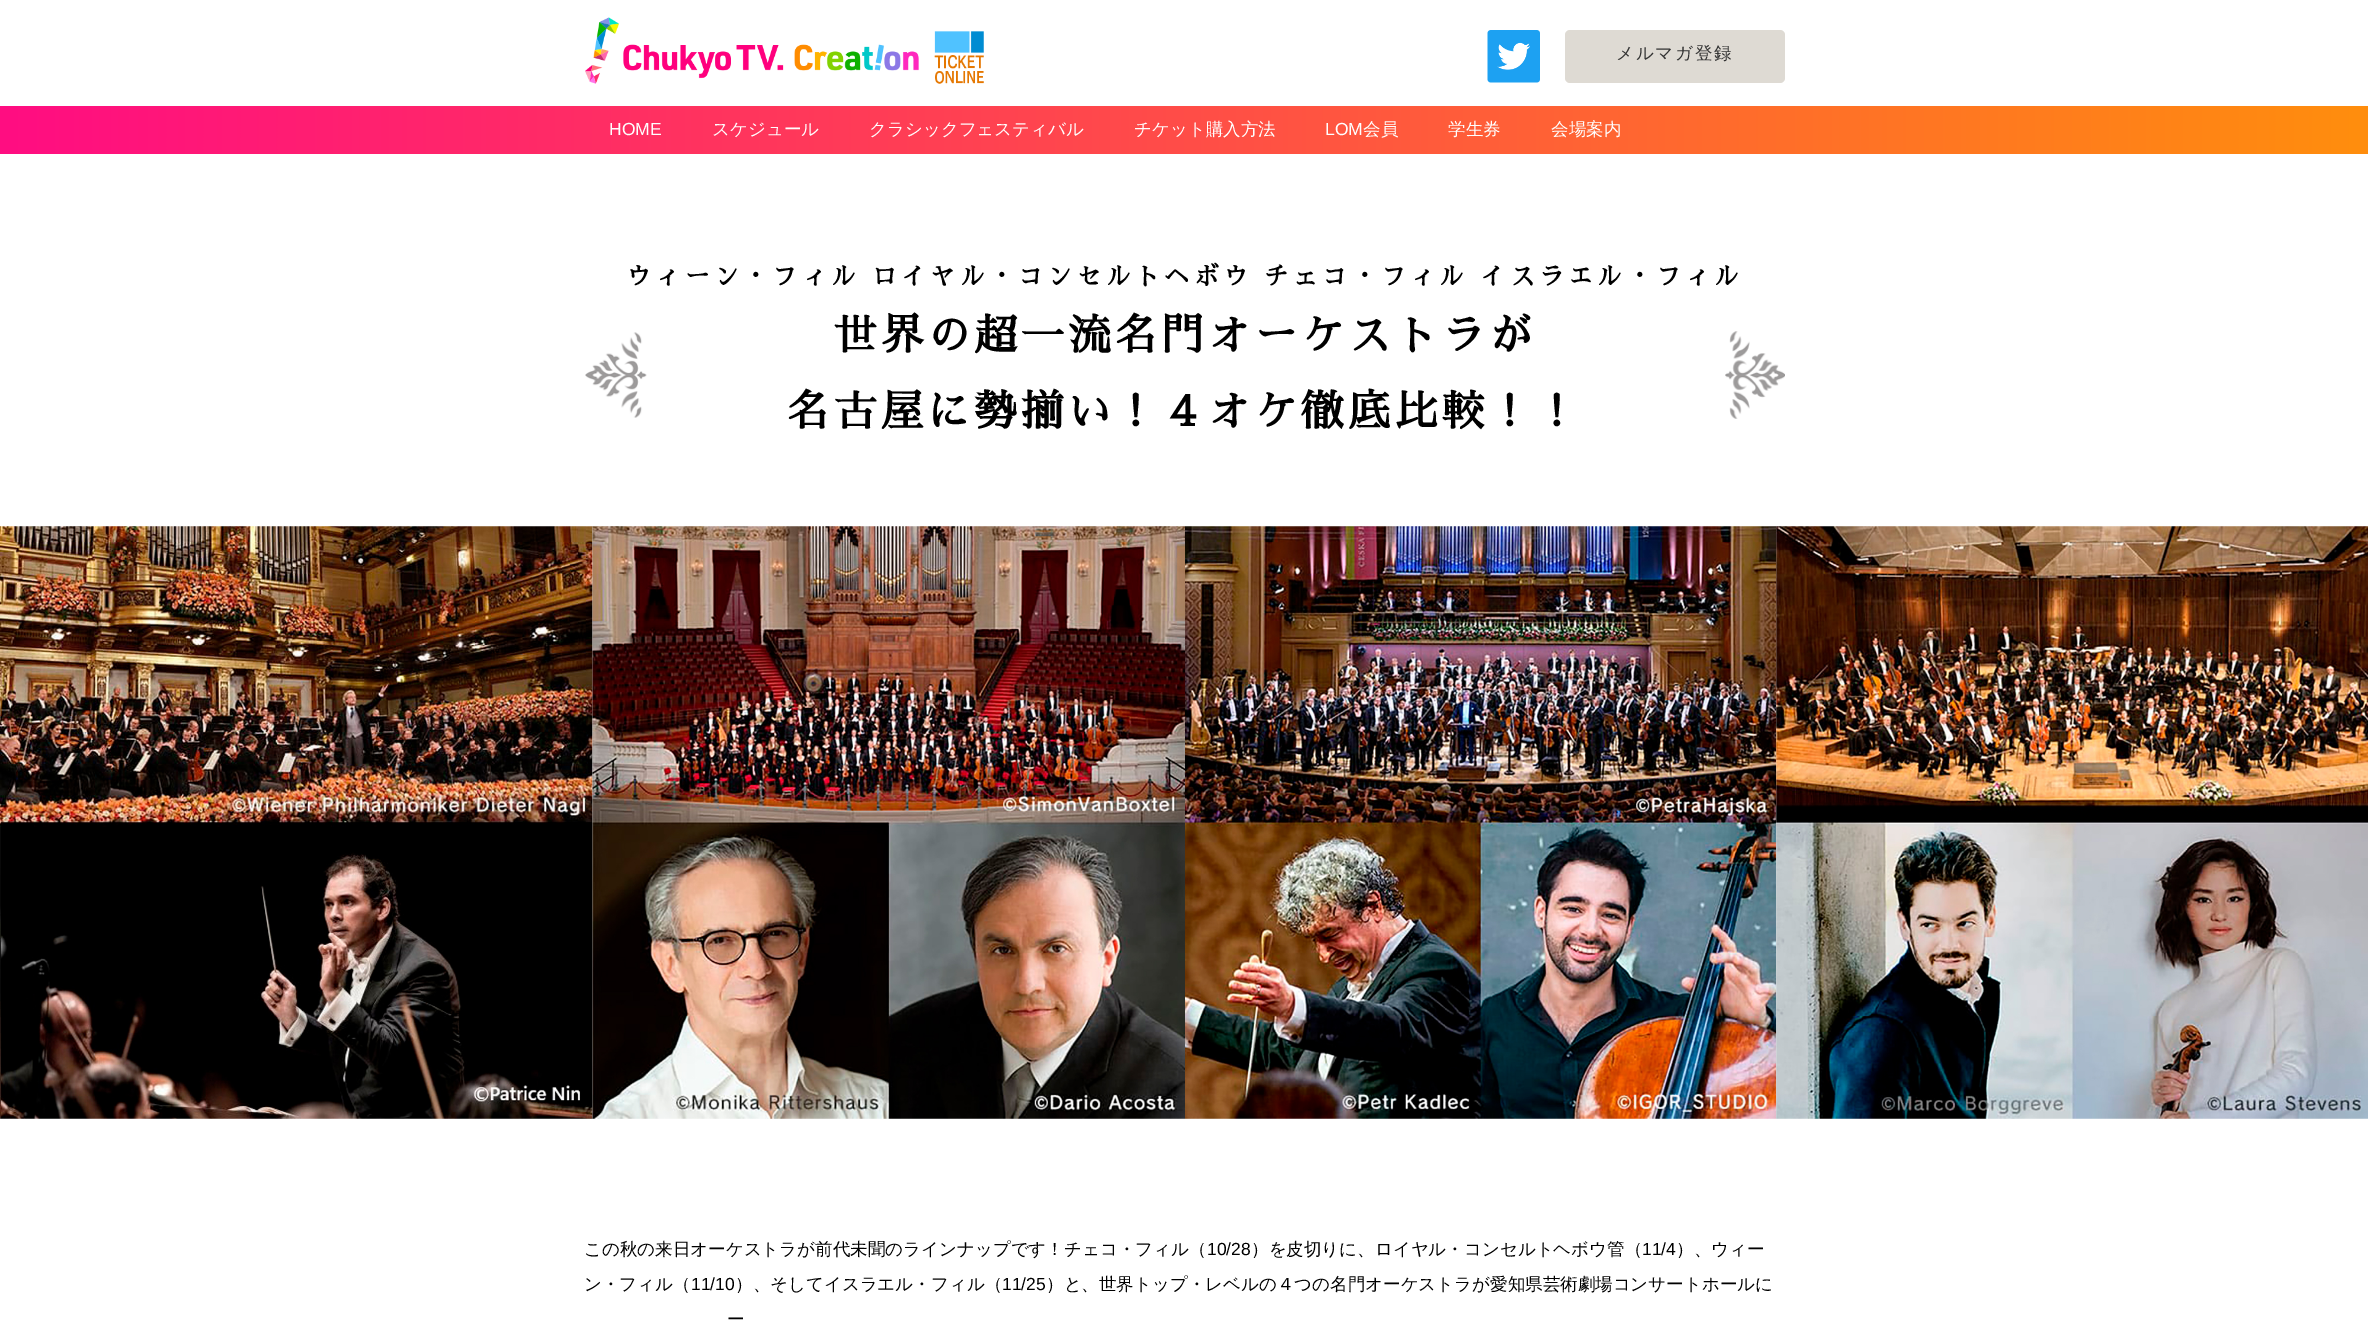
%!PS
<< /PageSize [2368 1321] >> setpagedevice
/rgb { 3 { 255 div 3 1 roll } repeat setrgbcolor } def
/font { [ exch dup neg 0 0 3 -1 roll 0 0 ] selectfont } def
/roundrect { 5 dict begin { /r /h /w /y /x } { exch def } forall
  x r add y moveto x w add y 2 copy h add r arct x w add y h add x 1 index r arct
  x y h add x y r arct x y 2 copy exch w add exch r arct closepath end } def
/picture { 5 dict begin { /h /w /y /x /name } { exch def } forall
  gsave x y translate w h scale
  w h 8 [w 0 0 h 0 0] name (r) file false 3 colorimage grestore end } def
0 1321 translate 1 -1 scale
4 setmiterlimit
255 255 255 rgb
0 0 2368 1321 rectfill
(img/1.rgb) 585 17 399 67 picture
(img/2.rgb) 1487 30 53 53 picture
222 218 211 rgb
1565 30 220 53 5 roundrect fill
gsave 0 106 moveto 2368 106 lineto 2368 154 lineto 0 154 lineto closepath clip newpath
<< /ShadingType 2 /ColorSpace /DeviceRGB /Coords [0 130 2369 130] /Extend [true true] /Function << /FunctionType 2 /Domain [0 1] /C0 [1 0.051 0.51] /C1 [1 0.557 0.051] /N 1 >> >> shfill grestore
(img/3.rgb) 585 331 1200 88 picture
(img/4.rgb) 0 526 593 593 picture
(img/5.rgb) 592 526 593 593 picture
(img/6.rgb) 1185 526 592 593 picture
(img/7.rgb) 1776 526 592 593 picture
/WenQuanYiZenHei-Medium 17.5 font
51 51 51 rgb
1616 59 moveto 1.75 0 (メルマガ登録) ashow
/LiberationSans-Regular 17.5 font
255 255 255 rgb
609 135 moveto (HOME) show
/WenQuanYiZenHei-Medium 17.5 font
[
  [(スケジュール) 712 135]
  [(クラシックフェスティバル) 869 135]
  [(チケット購入方法) 1134 135]
] { aload pop moveto show } forall
/LiberationSans-Regular 17.5 font
1325 135 moveto (LOM) show
/WenQuanYiZenHei-Medium 17.5 font
[
  [(会員) 1363 135]
  [(学生券) 1448 135]
  [(会場案内) 1551 135]
] { aload pop moveto show } forall
/SawarabiMincho-Bold 25 font
0 0 0 rgb
626 285 moveto 4.25 0 (ウィーン・フィル ロイヤル・コンセルトヘボウ チェコ・フィル イスラエル・フィル) ashow
/SawarabiMincho-Bold 42.5 font
834 350 moveto 4.25 0 (世界の超一流名門オーケストラが) ashow
787 426 moveto 4.25 0 (名古屋に勢揃い！４オケ徹底比較！！) ashow
/WenQuanYiZenHei-Medium 17.5 font
584 1255 moveto (この秋の来日オーケストラが前代未聞のラインナップです！チェコ・フィル（) show
/LiberationSans-Regular 17.5 font
1207 1255 moveto (10/28) show
/WenQuanYiZenHei-Medium 17.5 font
1251 1255 moveto (）を皮切りに、ロイヤル・コンセルトヘボウ管（) show
/LiberationSans-Regular 17.5 font
1642 1255 moveto (11/4) show
/WenQuanYiZenHei-Medium 17.5 font
1676 1255 moveto (）、ウィー) show
584 1290 moveto (ン・フィル（) show
/LiberationSans-Regular 17.5 font
691 1290 moveto (11/10) show
/WenQuanYiZenHei-Medium 17.5 font
735 1290 moveto (）、そしてイスラエル・フィル（) show
/LiberationSans-Regular 17.5 font
1002 1290 moveto (11/25) show
/WenQuanYiZenHei-Medium 17.5 font
1046 1290 moveto (）と、世界トップ・レベルの４つの名門オーケストラが愛知県芸術劇場コンサートホールに) show
727 1325 moveto (ー) show
showpage
